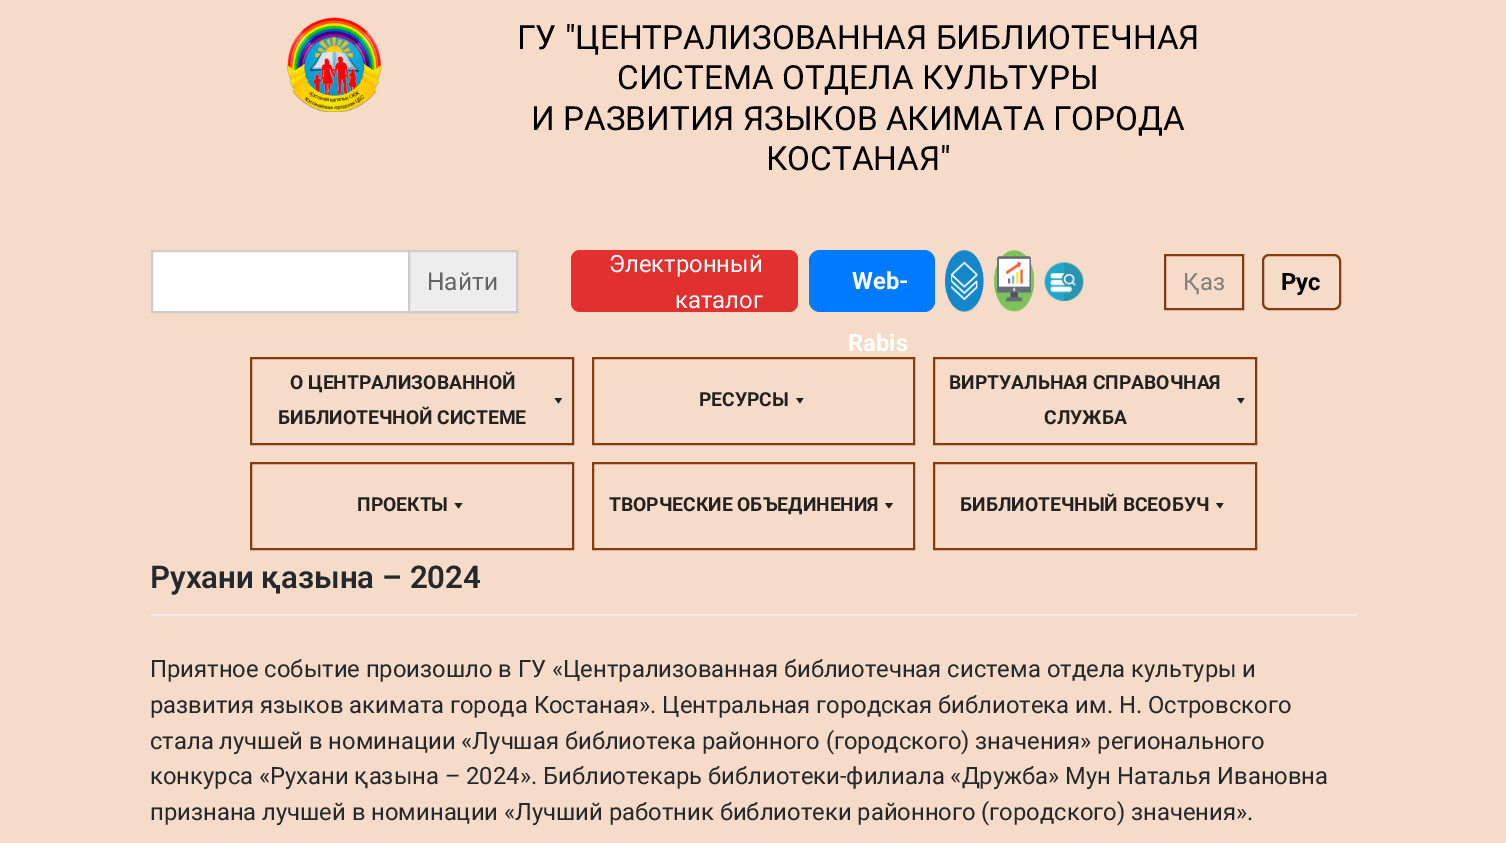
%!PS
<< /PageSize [1506 843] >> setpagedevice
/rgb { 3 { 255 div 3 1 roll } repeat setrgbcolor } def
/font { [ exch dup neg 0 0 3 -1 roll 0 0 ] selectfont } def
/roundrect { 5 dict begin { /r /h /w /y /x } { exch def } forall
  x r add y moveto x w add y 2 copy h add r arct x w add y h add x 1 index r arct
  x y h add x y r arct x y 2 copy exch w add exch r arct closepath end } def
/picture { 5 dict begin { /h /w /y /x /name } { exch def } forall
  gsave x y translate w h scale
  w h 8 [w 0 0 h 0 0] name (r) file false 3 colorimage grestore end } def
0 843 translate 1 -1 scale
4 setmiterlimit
246 219 200 rgb
0 0 1506 843 rectfill
(img/1.rgb) 287 17 95 95 picture
255 255 255 rgb
153 252 255 59 rectfill
204 204 204 rgb
2 setlinewidth
152 251 365 61 rectstroke
237 237 237 rgb
409 251 moveto 517 251 lineto 517 312 lineto 409 312 lineto closepath gsave fill grestore
204 204 204 rgb
stroke
226 47 47 rgb
571 250 227 62 9 roundrect fill
0 123 255 rgb
809 250 126 62 11 roundrect fill
(img/2.rgb) 945 250 39 62 picture
(img/3.rgb) 994 250 41 62 picture
(img/4.rgb) 1044 262 40 39 picture
132 60 12 rgb
1165 255 78 54 rectstroke
1263 255 77 54 6 roundrect stroke
251 358 322 86 rectstroke
34 34 34 rgb
562 398 moveto 558.5 403.5 lineto 554.5 398 lineto closepath fill
132 60 12 rgb
593 358 321 86 rectstroke
34 34 34 rgb
803.5 398 moveto 800 403.5 lineto 796 398 lineto closepath fill
132 60 12 rgb
934 358 322 86 rectstroke
34 34 34 rgb
1244.5 398 moveto 1241 403.5 lineto 1237 398 lineto closepath fill
132 60 12 rgb
251 463 322 86 rectstroke
34 34 34 rgb
462.5 503 moveto 458.5 508.5 lineto 454.5 503 lineto closepath fill
132 60 12 rgb
593 463 321 86 rectstroke
34 34 34 rgb
893 503 moveto 889 508.5 lineto 885 503 lineto closepath fill
132 60 12 rgb
934 463 322 86 rectstroke
34 34 34 rgb
1223.5 503 moveto 1220 508.5 lineto 1216 503 lineto closepath fill
234 236 239 rgb
151 614 1207 2 rectfill
/Roboto-Regular 33.25 font
0 0 0 rgb
[
  [(ГУ "ЦЕНТРАЛИЗОВАННАЯ БИБЛИОТЕЧНАЯ) 517 49]
  [(СИСТЕМА ОТДЕЛА КУЛЬТУРЫ) 617 89]
  [(И РАЗВИТИЯ ЯЗЫКОВ АКИМАТА ГОРОДА) 531 130]
  [(КОСТАНАЯ") 766 170]
] { aload pop moveto show } forall
/Roboto-Regular 24.5 font
102 102 102 rgb
427 290 moveto (Найти) show
/Roboto-Regular 23.8 font
255 255 255 rgb
609 272 moveto (Электронный) show
675 308 moveto (каталог) show
/Roboto-Bold 23.8 font
852 289 moveto (Web-) show
848 351 moveto (Rabis) show
/Roboto-Regular 23.8 font
128 128 128 rgb
1183 290 moveto (Қаз) show
/Roboto-Bold 23.8 font
0 0 0 rgb
1281 290 moveto (Рус) show
/Roboto-Bold 19.25 font
34 34 34 rgb
[
  [(О ЦЕНТРАЛИЗОВАННОЙ) 290 389]
  [(БИБЛИОТЕЧНОЙ СИСТЕМЕ) 278 424]
  [(РЕСУРСЫ) 699 406]
  [(ВИРТУАЛЬНАЯ СПРАВОЧНАЯ) 949 389]
  [(СЛУЖБА) 1044 424]
  [(ПРОЕКТЫ) 357 511]
  [(ТВОРЧЕСКИЕ ОБЪЕДИНЕНИЯ) 609 511]
  [(БИБЛИОТЕЧНЫЙ ВСЕОБУЧ) 960 511]
] { aload pop moveto show } forall
/Roboto-SemiBold 31.25 font
36 41 46 rgb
150 588 moveto (Рухани қазына – 2024) show
/Roboto-Regular 23.8 font
[
  [(Приятное событие произошло в ГУ «Централизованная библиотечная система отдела культуры и) 150 677]
  [(развития языков акимата города Костаная». Центральная городская библиотека им. Н. Островского) 150 713]
  [(стала лучшей в номинации «Лучшая библиотека районного \(городского\) значения» регионального) 150 749]
  [(конкурса «Рухани қазына – 2024». Библиотекарь библиотеки-филиала «Дружба» Мун Наталья Ивановна) 150 784]
  [(признана лучшей в номинации «Лучший работник библиотеки районного \(городского\) значения».) 150 820]
] { aload pop moveto show } forall
showpage
